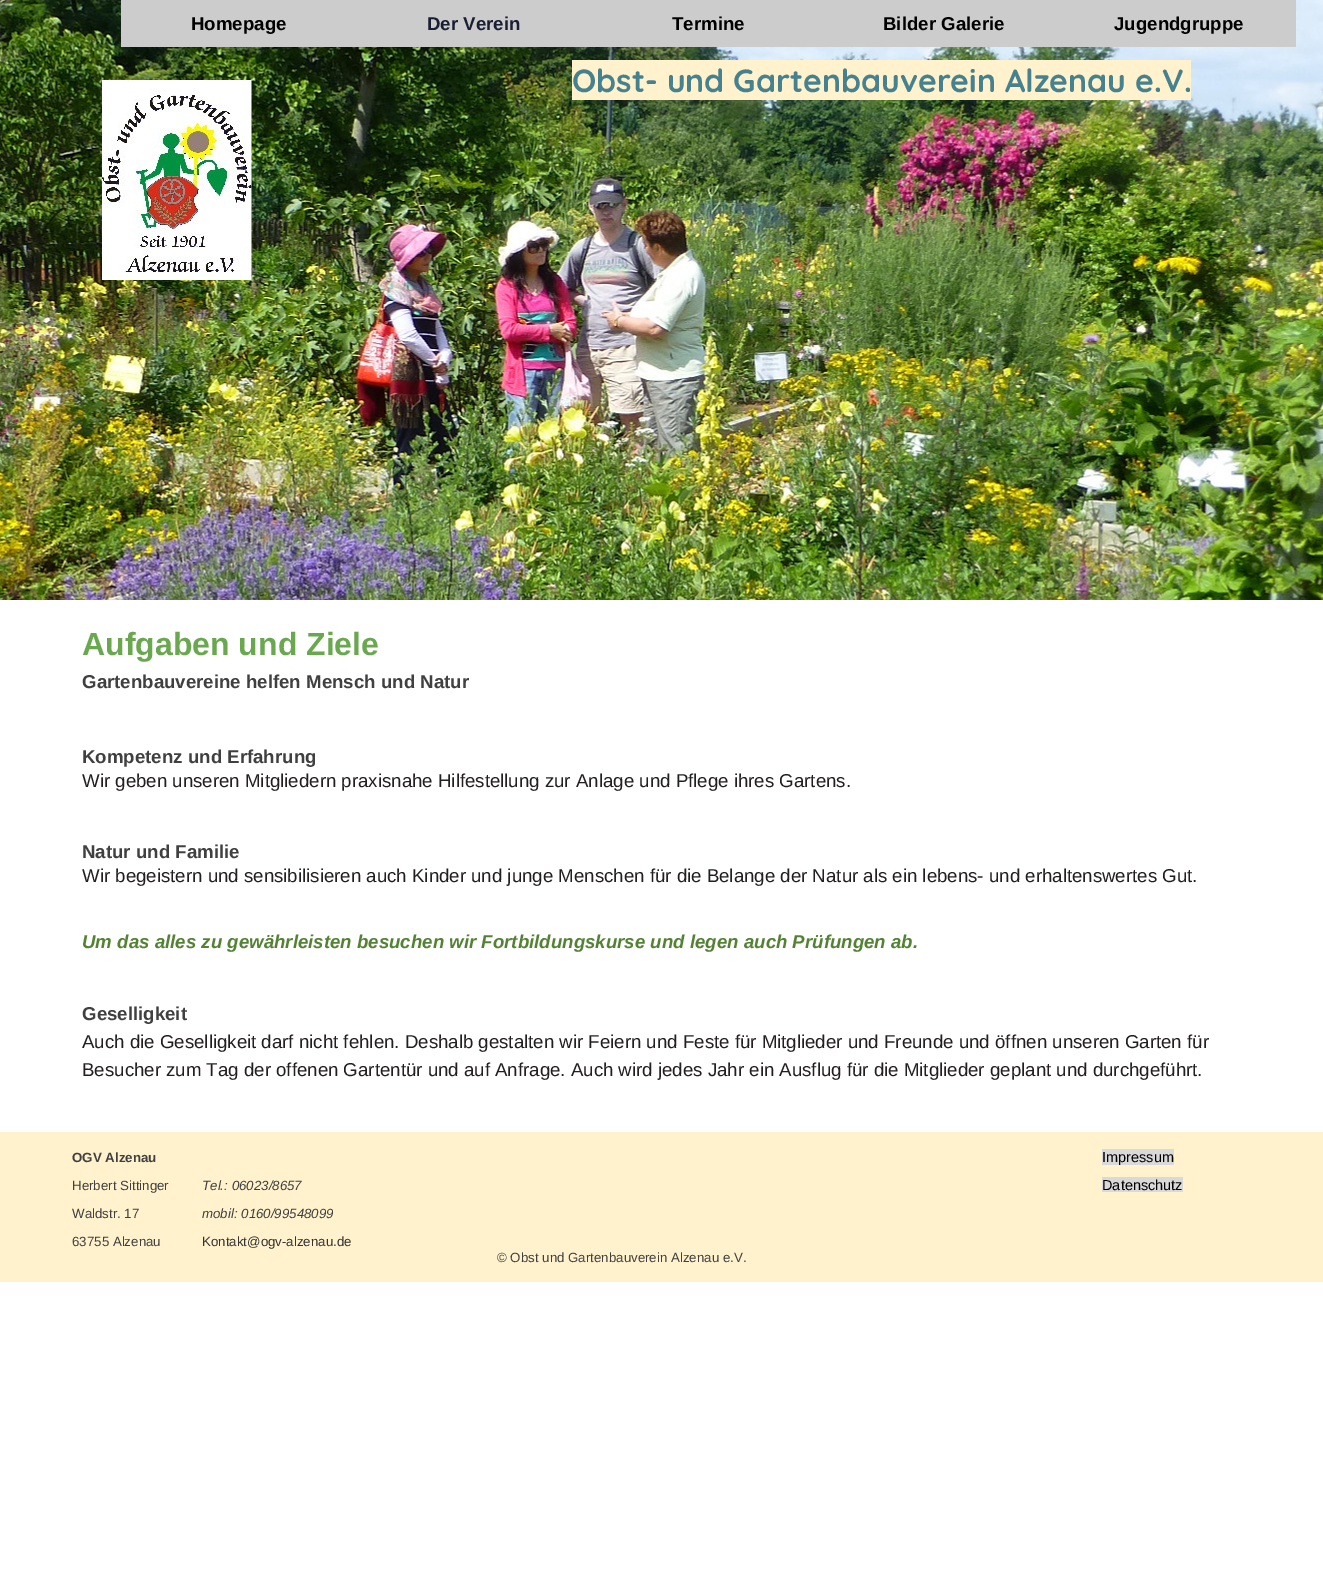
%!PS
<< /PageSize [1323 1596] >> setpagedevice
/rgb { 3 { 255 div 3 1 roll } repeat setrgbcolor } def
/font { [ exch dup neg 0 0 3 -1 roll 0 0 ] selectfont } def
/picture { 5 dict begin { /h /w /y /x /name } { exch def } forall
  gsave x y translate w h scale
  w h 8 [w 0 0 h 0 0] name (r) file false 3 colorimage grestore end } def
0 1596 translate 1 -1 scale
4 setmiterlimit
255 255 255 rgb
0 0 1323 1596 rectfill
(img/1.rgb) 0 0 1323 600 picture
204 204 204 rgb
121 0 1175 47 rectfill
(img/2.rgb) 102 80 150 200 picture
[
  [572 60 619 40 255 242 204]
  [0 1132 1323 150 255 242 204]
  [1102 1149 72 16 217 217 217]
  [1102 1177 81 15 217 217 217]
] { aload pop rgb rectfill } forall
/LiberationSans-Bold 18.67 font
0 0 0 rgb
191 30 moveto (Homepage) show
26 30 50 rgb
427 30 moveto (Der Verein) show
0 0 0 rgb
[
  [(Termine) 672 30]
  [(Bilder Galerie) 883 30]
  [(Jugendgruppe) 1114 30]
] { aload pop moveto show } forall
/Quicksand-Bold 32 font
69 129 142 rgb
572 92 moveto (Obst- und Gartenbauverein Alzenau e.V.) show
/LiberationSans-Bold 32 font
106 168 79 rgb
82 655 moveto (Aufgaben und Ziele) show
/LiberationSans-Bold 18.67 font
64 64 64 rgb
82 688 moveto (Gartenbauvereine helfen Mensch und Natur) show
82 763 moveto (Kompetenz und Erfahrung) show
/LiberationSans-Regular 18.67 font
35 31 32 rgb
82 787 moveto (Wir geben unseren Mitgliedern praxisnahe Hilfestellung zur Anlage und Pflege ihres Gartens.) show
/LiberationSans-Bold 18.67 font
64 64 64 rgb
82 858 moveto (Natur und Familie) show
/LiberationSans-Regular 18.67 font
35 31 32 rgb
82 882 moveto (Wir begeistern und sensibilisieren auch Kinder und junge Menschen für die Belange der Natur als ein lebens- und erhaltenswertes Gut.) show
/LiberationSans-BoldItalic 18.67 font
84 130 53 rgb
82 948 moveto (Um das alles zu gewährleisten besuchen wir Fortbildungskurse und legen auch Prüfungen ab.) show
/LiberationSans-Bold 18.67 font
64 64 64 rgb
82 1020 moveto (Geselligkeit) show
/LiberationSans-Regular 18.67 font
35 31 32 rgb
82 1048 moveto (Auch die Geselligkeit darf nicht fehlen. Deshalb gestalten wir Feiern und Feste für Mitglieder und Freunde und öffnen unseren Garten für) show
82 1076 moveto (Besucher zum Tag der offenen Gartentür und auf Anfrage. Auch wird jedes Jahr ein Ausflug für die Mitglieder geplant und durchgeführt.) show
/LiberationSans-Bold 13.3 font
64 64 64 rgb
72 1162 moveto (OGV Alzenau) show
/LiberationSans-Regular 13.3 font
[
  [(Herbert Sittinger) 72 1190]
  [(Waldstr. 17) 72 1218]
  [(63755 Alzenau) 72 1246]
] { aload pop moveto show } forall
/LiberationSans-Italic 13.3 font
202 1190 moveto (Tel.: 06023/8657) show
202 1218 moveto (mobil: 0160/99548099) show
/LiberationSans-Regular 13.3 font
51 51 51 rgb
202 1246 moveto (Kontakt@ogv-alzenau.de) show
/LiberationSans-Regular 14.5 font
0 0 0 rgb
1102 1162 moveto (Impressum) show
1102 1190 moveto (Datenschutz) show
/LiberationSans-Regular 13.3 font
64 64 64 rgb
497 1262 moveto (© Obst und Gartenbauverein Alzenau e.V.) show
showpage
